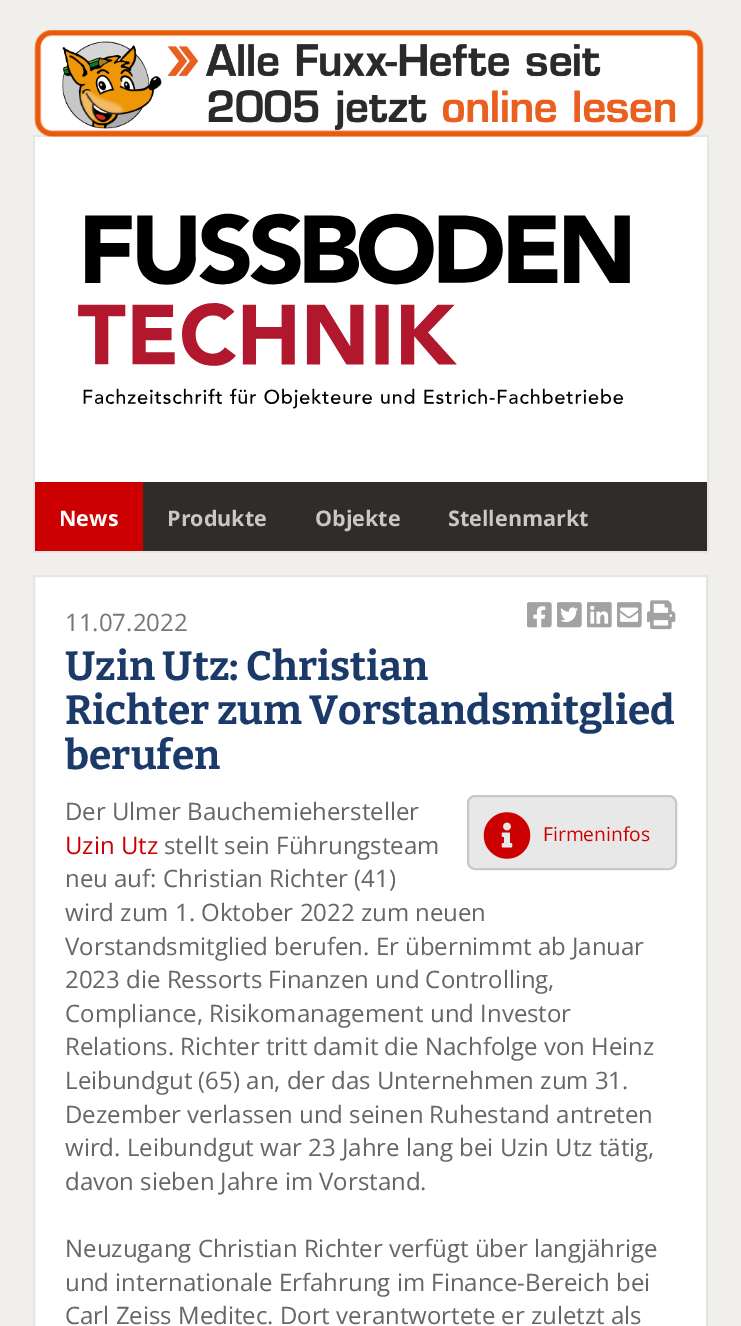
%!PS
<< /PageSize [741 1326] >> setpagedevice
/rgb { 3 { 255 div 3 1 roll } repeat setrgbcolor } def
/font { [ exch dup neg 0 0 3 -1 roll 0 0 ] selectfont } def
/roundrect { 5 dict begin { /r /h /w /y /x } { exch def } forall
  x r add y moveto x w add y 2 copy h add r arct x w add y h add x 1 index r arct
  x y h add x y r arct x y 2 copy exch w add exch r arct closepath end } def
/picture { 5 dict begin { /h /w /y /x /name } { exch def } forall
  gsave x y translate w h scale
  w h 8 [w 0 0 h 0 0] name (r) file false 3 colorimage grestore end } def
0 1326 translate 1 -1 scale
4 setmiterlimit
241 239 236 rgb
0 0 741 1326 rectfill
229 229 229 rgb
33 135 675 2 rectfill
33 135 2 354 rectfill
(img/1.rgb) 34 30 670 107 picture
255 255 255 rgb
35 137 672 345 rectfill
229 229 229 rgb
707 135 2 417 rectfill
(img/2.rgb) 78 213 552 196 picture
[
  [33 551 675 2 229 229 229]
  [33 482 2 70 229 229 229]
  [143 482 564 69 47 44 42]
  [35 482 108 69 204 0 0]
] { aload pop rgb rectfill } forall
255 255 255 rgb
34 576 moveto 707 576 lineto 707 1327 lineto 34 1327 lineto closepath gsave fill grestore
229 229 229 rgb
2 setlinewidth
stroke
(img/3.rgb) 527 602 25 26 picture
(img/4.rgb) 557 602 25 26 picture
(img/5.rgb) 587 602 25 26 picture
(img/6.rgb) 617 602 25 26 picture
(img/7.rgb) 647 600 29 30 picture
232 232 232 rgb
468 796 208 73 7 roundrect gsave fill grestore
200 200 200 rgb
stroke
(img/8.rgb) 483 812 48 47 picture
/OpenSans-Bold 21.5 font
255 255 255 rgb
59 526 moveto (News) show
200 200 200 rgb
[
  [(Produkte) 167 526]
  [(Objekte) 315 526]
  [(Stellenmarkt) 448 526]
] { aload pop moveto show } forall
/OpenSans-Regular 24 font
118 118 118 rgb
65 631 moveto (11.07.2022) show
/Bitter-Bold 40.75 font
27 58 105 rgb
[
  [(Uzin Utz: Christian) 65 680]
  [(Richter zum Vorstandsmitglied) 65 724]
  [(berufen) 65 769]
] { aload pop moveto show } forall
/OpenSans-Regular 24 font
102 102 102 rgb
65 820 moveto (Der Ulmer Bauchemiehersteller) show
204 0 0 rgb
65 854 moveto (Uzin Utz) show
102 102 102 rgb
164 854 moveto (stellt sein Führungsteam) show
/OpenSans-Regular 19.25 font
204 0 0 rgb
543 841 moveto (Firmeninfos) show
/OpenSans-Regular 24 font
102 102 102 rgb
[
  [(neu auf: Christian Richter \(41\)) 65 887]
  [(wird zum 1. Oktober 2022 zum neuen) 65 921]
  [(Vorstandsmitglied berufen. Er übernimmt ab Januar) 65 955]
  [(2023 die Ressorts Finanzen und Controlling,) 65 988]
  [(Compliance, Risikomanagement und Investor) 65 1022]
  [(Relations. Richter tritt damit die Nachfolge von Heinz) 65 1055]
  [(Leibundgut \(65\) an, der das Unternehmen zum 31.) 65 1089]
  [(Dezember verlassen und seinen Ruhestand antreten) 65 1123]
  [(wird. Leibundgut war 23 Jahre lang bei Uzin Utz tätig,) 65 1156]
  [(davon sieben Jahre im Vorstand.) 65 1190]
  [(Neuzugang Christian Richter verfügt über langjährige) 65 1257]
  [(und internationale Erfahrung im Finance-Bereich bei) 65 1291]
  [(Carl Zeiss Meditec. Dort verantwortete er zuletzt als) 65 1324]
] { aload pop moveto show } forall
showpage
